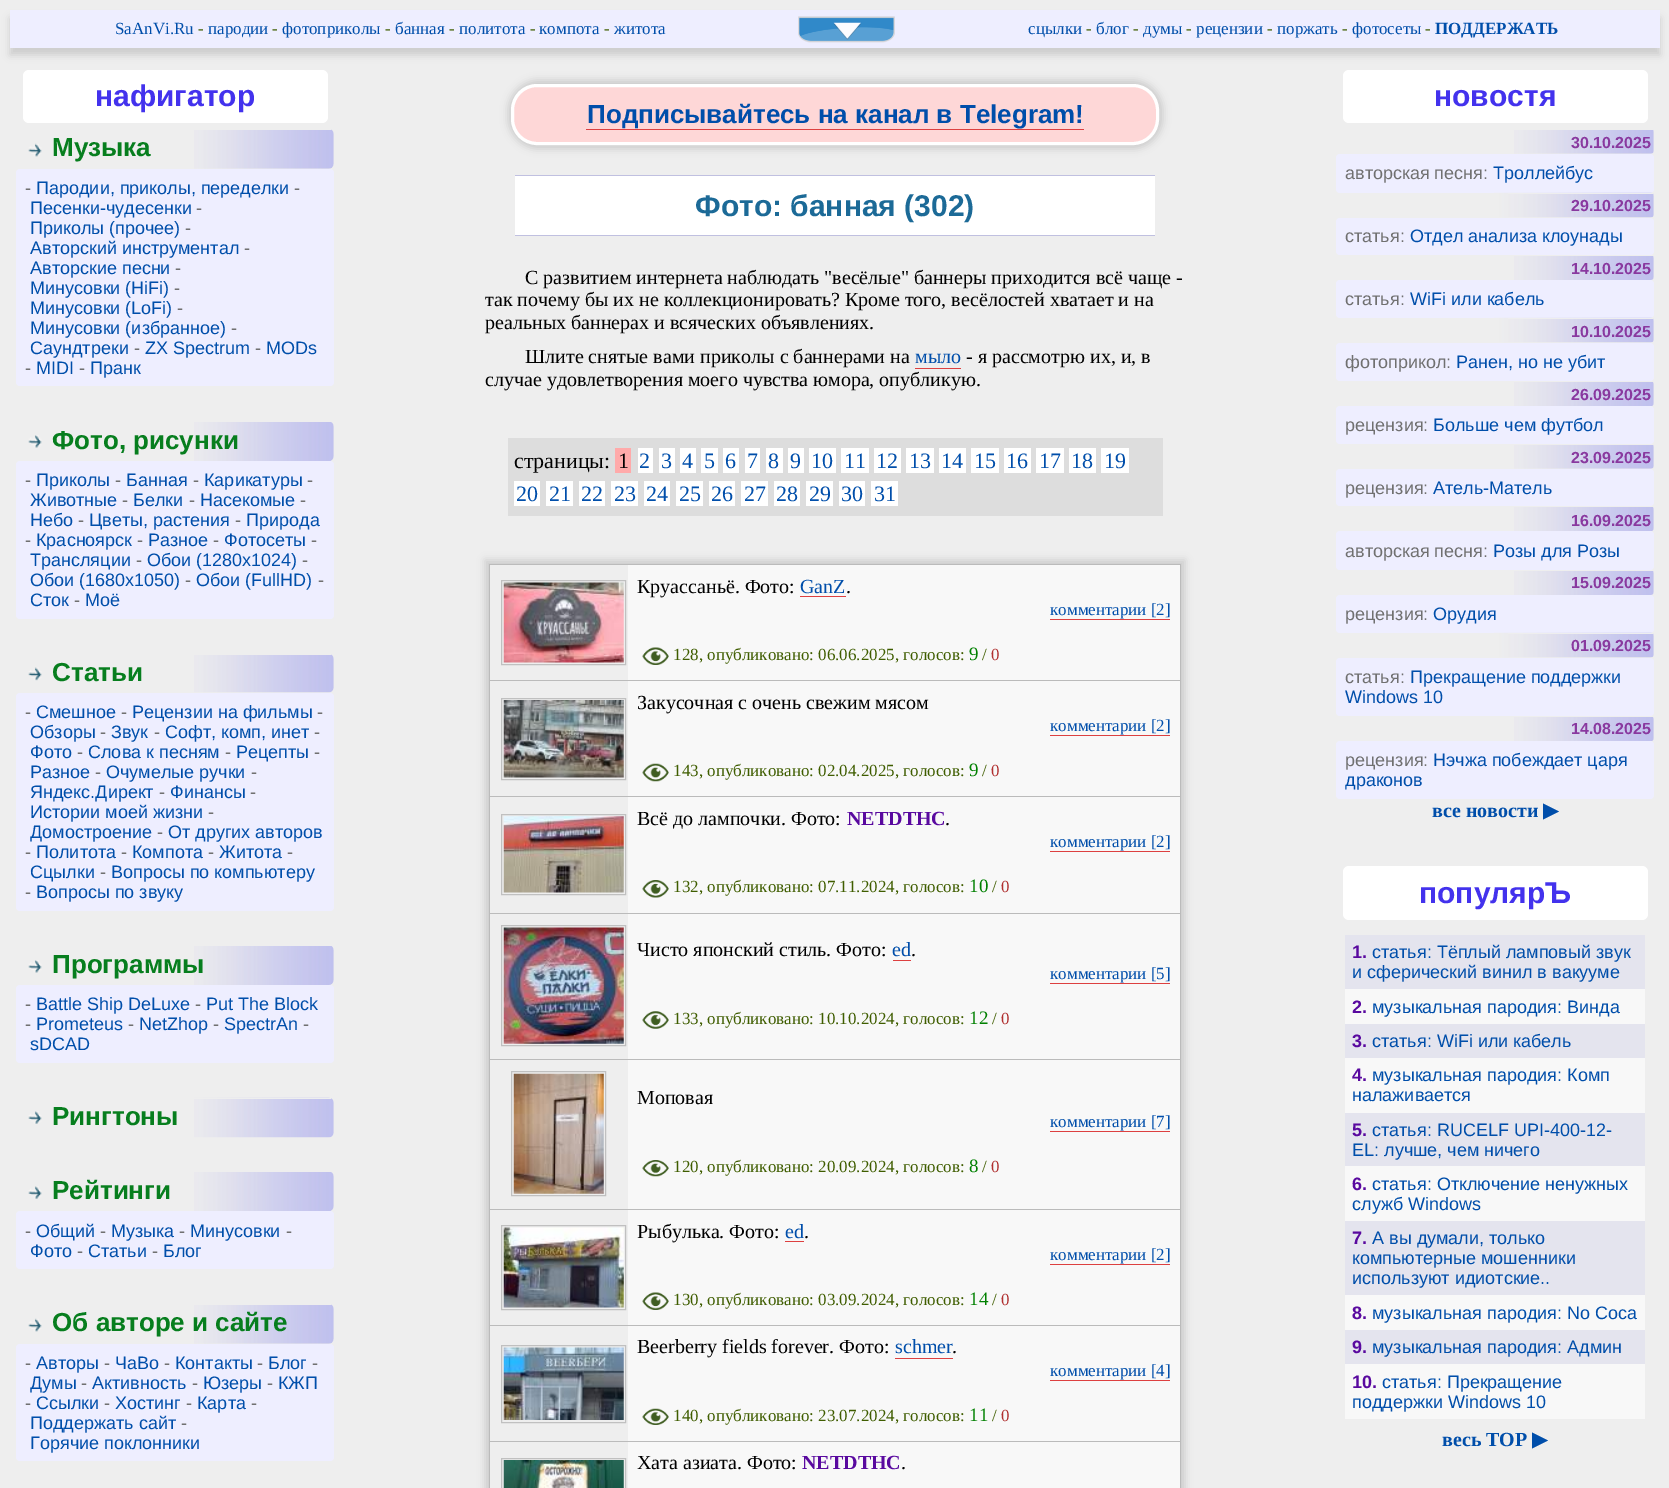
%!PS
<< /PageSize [1669 1488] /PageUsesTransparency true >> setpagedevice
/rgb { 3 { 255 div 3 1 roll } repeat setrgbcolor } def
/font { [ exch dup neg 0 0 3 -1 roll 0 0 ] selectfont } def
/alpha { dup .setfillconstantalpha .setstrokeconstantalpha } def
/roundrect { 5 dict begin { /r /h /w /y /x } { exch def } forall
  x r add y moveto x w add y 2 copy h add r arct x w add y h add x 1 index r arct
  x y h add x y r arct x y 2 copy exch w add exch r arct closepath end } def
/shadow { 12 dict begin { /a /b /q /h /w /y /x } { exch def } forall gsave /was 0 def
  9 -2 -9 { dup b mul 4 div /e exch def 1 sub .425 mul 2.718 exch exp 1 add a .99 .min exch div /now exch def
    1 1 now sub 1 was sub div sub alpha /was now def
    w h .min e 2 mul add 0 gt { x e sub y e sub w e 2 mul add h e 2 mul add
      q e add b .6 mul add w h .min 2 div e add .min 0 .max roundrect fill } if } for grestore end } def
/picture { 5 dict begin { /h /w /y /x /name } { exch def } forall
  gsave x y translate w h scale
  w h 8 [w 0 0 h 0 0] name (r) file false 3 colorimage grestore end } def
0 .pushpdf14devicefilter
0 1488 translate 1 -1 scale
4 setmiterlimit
238 238 238 rgb
0 0 1669 1488 rectfill
204 204 204 rgb
10 18 1650 37 0 4 1 shadow
238 238 255 rgb
10 10 1650 38 rectfill
(img/1.rgb) 798 16 97 27 picture
255 255 255 rgb
23 70 305 53 6 roundrect fill
(img/2.rgb) 194 129 140 40 picture
238 238 238 rgb
194 129 137 1 rectfill
(img/3.rgb) 28 143 14 14 picture
238 238 255 rgb
16 169 318 217 4 roundrect fill
(img/4.rgb) 194 422 140 39 picture
(img/5.rgb) 28 435 14 13 picture
16 461 318 158 4 roundrect fill
(img/6.rgb) 194 654 140 39 picture
238 238 238 rgb
194 654 137 1 rectfill
(img/7.rgb) 28 667 14 14 picture
238 238 255 rgb
16 693 318 218 4 roundrect fill
(img/8.rgb) 194 945 140 40 picture
238 238 238 rgb
194 945 137 1 rectfill
(img/5.rgb) 28 960 14 13 picture
238 238 255 rgb
16 985 318 78 4 roundrect fill
(img/9.rgb) 194 1097 140 41 picture
238 238 238 rgb
194 1098 137 1 rectfill
(img/10.rgb) 28 1111 14 13 picture
(img/4.rgb) 194 1172 140 39 picture
(img/10.rgb) 28 1186 14 13 picture
238 238 255 rgb
16 1211 318 58 4 roundrect fill
(img/2.rgb) 194 1304 140 40 picture
238 238 238 rgb
194 1304 137 1 rectfill
(img/3.rgb) 28 1318 14 14 picture
238 238 255 rgb
16 1344 318 117 4 roundrect fill
204 204 204 rgb
508 80 655 69 30 4 1 shadow
254 215 215 rgb
512.5 85.5 645 58 24.5 roundrect gsave fill grestore
255 255 255 rgb
3 setlinewidth
stroke
[
  [586 129 498 1 221 64 64]
  [515 176 640 59 255 255 255]
  [515 175 640 1 192 192 224]
  [515 235 640 1 192 192 224]
  [915 368 46 1 221 64 64]
  [508 438 655 78 221 221 221]
  [615 448 16 25 255 170 170]
  [638 448 15 25 255 255 255]
  [659 448 16 25 255 255 255]
  [680 448 16 25 255 255 255]
  [701 448 17 25 255 255 255]
  [723 448 16 25 255 255 255]
  [745 448 15 25 255 255 255]
  [766 448 17 25 255 255 255]
  [788 448 16 25 255 255 255]
  [809 448 27 25 255 255 255]
  [841 448 28 25 255 255 255]
  [874 448 27 25 255 255 255]
  [906 448 28 25 255 255 255]
  [939 448 27 25 255 255 255]
  [971 448 28 25 255 255 255]
  [1004 448 27 25 255 255 255]
  [1036 448 28 25 255 255 255]
  [1069 448 27 25 255 255 255]
  [1101 448 28 25 255 255 255]
  [514 481 26 25 255 255 255]
  [546 481 27 25 255 255 255]
  [579 481 26 25 255 255 255]
  [611 481 27 25 255 255 255]
  [644 481 26 25 255 255 255]
  [676 481 27 25 255 255 255]
  [709 481 26 25 255 255 255]
  [741 481 27 25 255 255 255]
  [774 481 26 25 255 255 255]
  [806 481 27 25 255 255 255]
  [839 481 26 25 255 255 255]
  [871 481 27 25 255 255 255]
] { aload pop rgb rectfill } forall
gsave
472 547 moveto 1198 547 lineto 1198 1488 lineto 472 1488 lineto closepath 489 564 moveto 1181 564 lineto 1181 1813 lineto 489 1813 lineto closepath eoclip newpath
204 204 204 rgb
485 560 700 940 0 4 1 shadow
grestore
[
  [489 564 692 1 187 187 187]
  [1180 564 1 924 187 187 187]
  [489 564 1 924 187 187 187]
] { aload pop rgb rectfill } forall
192 192 192 rgb
1 setlinewidth
501.5 580.5 124 84 rectstroke
(img/11.rgb) 503 582 121 81 picture
[
  [628 565 552 115 248 248 248]
  [489 680 692 1 187 187 187]
  [800 596 46 1 221 64 64]
  [1050 619 120 1 221 64 64]
] { aload pop rgb rectfill } forall
(img/12.rgb) 642 647 27 18 picture
192 192 192 rgb
501.5 698.5 124 81 rectstroke
(img/13.rgb) 503 700 121 78 picture
[
  [628 681 552 115 248 248 248]
  [489 796 692 1 187 187 187]
  [1050 735 120 1 221 64 64]
] { aload pop rgb rectfill } forall
(img/14.rgb) 642 763 27 19 picture
192 192 192 rgb
501.5 814.5 124 80 rectstroke
(img/15.rgb) 503 816 121 77 picture
[
  [628 797 552 116 248 248 248]
  [489 913 692 1 187 187 187]
  [1050 851 120 1 221 64 64]
] { aload pop rgb rectfill } forall
(img/16.rgb) 642 880 27 18 picture
192 192 192 rgb
501.5 925.5 124 120 rectstroke
(img/17.rgb) 503 927 121 117 picture
[
  [628 914 552 145 248 248 248]
  [489 1059 692 1 187 187 187]
  [893 960 18 1 221 64 64]
  [1050 983 120 1 221 64 64]
] { aload pop rgb rectfill } forall
(img/18.rgb) 642 1011 27 18 picture
192 192 192 rgb
511.5 1071.5 94 124 rectstroke
(img/19.rgb) 513 1073 91 121 picture
[
  [628 1060 552 149 248 248 248]
  [489 1209 692 1 187 187 187]
  [1050 1131 120 1 221 64 64]
] { aload pop rgb rectfill } forall
(img/20.rgb) 642 1160 27 17 picture
192 192 192 rgb
501.5 1225.5 124 84 rectstroke
(img/21.rgb) 503 1227 121 81 picture
[
  [628 1210 552 115 248 248 248]
  [489 1325 692 1 187 187 187]
  [785 1241 19 1 221 64 64]
  [1050 1264 120 1 221 64 64]
] { aload pop rgb rectfill } forall
(img/12.rgb) 642 1292 27 18 picture
192 192 192 rgb
501.5 1345.5 124 77 rectstroke
(img/22.rgb) 503 1347 121 73 picture
[
  [628 1326 552 115 248 248 248]
  [489 1441 692 1 187 187 187]
  [895 1358 58 1 221 64 64]
  [1050 1380 120 1 221 64 64]
] { aload pop rgb rectfill } forall
(img/23.rgb) 642 1408 27 17 picture
192 192 192 rgb
501.5 1458.5 124 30 rectstroke
(img/24.rgb) 503 1460 121 28 picture
248 248 248 rgb
628 1442 552 46 rectfill
255 255 255 rgb
1343 70 305 53 6 roundrect fill
(img/25.rgb) 1514 129 140 25 picture
238 238 238 rgb
1514 129 139 1 rectfill
238 238 255 rgb
1336 154 318 39 4 roundrect fill
(img/26.rgb) 1494 192 160 26 picture
238 238 238 rgb
1508 193 145 1 rectfill
238 238 255 rgb
1336 218 318 37 4 roundrect fill
(img/27.rgb) 1514 256 140 24 picture
1336 280 318 38 4 roundrect fill
(img/26.rgb) 1494 317 160 26 picture
238 238 238 rgb
1508 318 145 1 rectfill
238 238 255 rgb
1336 343 318 38 4 roundrect fill
(img/28.rgb) 1514 382 140 24 picture
1336 406 318 38 4 roundrect fill
(img/25.rgb) 1514 444 140 25 picture
238 238 238 rgb
1514 444 139 1 rectfill
238 238 255 rgb
1336 469 318 37 4 roundrect fill
(img/29.rgb) 1514 507 140 24 picture
1336 531 318 39 4 roundrect fill
(img/27.rgb) 1514 571 140 24 picture
1336 595 318 38 4 roundrect fill
(img/26.rgb) 1494 632 160 26 picture
238 238 238 rgb
1508 633 145 1 rectfill
238 238 255 rgb
1336 658 318 58 4 roundrect fill
(img/28.rgb) 1514 717 140 24 picture
1336 741 318 58 4 roundrect fill
255 255 255 rgb
1343 866 305 54 6 roundrect fill
[
  [1345 935 300 54 228 228 238]
  [1345 989 300 35 248 248 248]
  [1345 1024 300 34 228 228 238]
  [1345 1058 300 55 248 248 248]
  [1345 1113 300 53 228 228 238]
  [1345 1166 300 55 248 248 248]
  [1345 1221 300 74 228 228 238]
  [1345 1295 300 35 248 248 248]
  [1345 1330 300 34 228 228 238]
  [1345 1364 300 55 248 248 248]
] { aload pop rgb rectfill } forall
/LiberationSerif-Regular 17 font
0 78 170 rgb
115 34 moveto (SaAnVi.Ru) show
63 93 0 rgb
198 34 moveto (-) show
0 78 170 rgb
208 34 moveto (пародии) show
63 93 0 rgb
272 34 moveto (-) show
0 78 170 rgb
282 34 moveto (фотоприколы) show
63 93 0 rgb
385 34 moveto (-) show
0 78 170 rgb
395 34 moveto (банная) show
63 93 0 rgb
449 34 moveto (-) show
0 78 170 rgb
459 34 moveto (политота) show
63 93 0 rgb
530 34 moveto (-) show
0 78 170 rgb
539 34 moveto (компота) show
63 93 0 rgb
604 34 moveto (-) show
0 78 170 rgb
614 34 moveto (житота) show
1028 34 moveto (сцылки) show
63 93 0 rgb
1086 34 moveto (-) show
0 78 170 rgb
1096 34 moveto (блог) show
63 93 0 rgb
1133 34 moveto (-) show
0 78 170 rgb
1143 34 moveto (думы) show
63 93 0 rgb
1186 34 moveto (-) show
0 78 170 rgb
1196 34 moveto (рецензии) show
63 93 0 rgb
1267 34 moveto (-) show
0 78 170 rgb
1277 34 moveto (поржать) show
63 93 0 rgb
1342 34 moveto (-) show
0 78 170 rgb
1352 34 moveto (фотосеты) show
63 93 0 rgb
1425 34 moveto (-) show
/LiberationSerif-Bold 17 font
0 78 170 rgb
1435 34 moveto (ПОДДЕРЖАТЬ) show
/LiberationSans-Bold 30 font
67 50 237 rgb
95 106 moveto (нафигатор) show
/LiberationSans-Bold 26 font
7 126 30 rgb
52 156 moveto (Музыка) show
/LiberationSans-Regular 18 font
112 112 112 rgb
25 194 moveto (-) show
0 78 170 rgb
36 194 moveto (Пародии, приколы, переделки) show
112 112 112 rgb
294 194 moveto (-) show
0 78 170 rgb
30 214 moveto (Песенки-чудесенки) show
112 112 112 rgb
196 214 moveto (-) show
0 78 170 rgb
30 234 moveto (Приколы \(прочее\)) show
112 112 112 rgb
185 234 moveto (-) show
0 78 170 rgb
30 254 moveto (Авторский инструментал) show
112 112 112 rgb
244 254 moveto (-) show
0 78 170 rgb
30 274 moveto (Авторские песни) show
112 112 112 rgb
175 274 moveto (-) show
0 78 170 rgb
30 294 moveto (Минусовки \(HiFi\)) show
112 112 112 rgb
174 294 moveto (-) show
0 78 170 rgb
30 314 moveto (Минусовки \(LoFi\)) show
112 112 112 rgb
177 314 moveto (-) show
0 78 170 rgb
30 334 moveto (Минусовки \(избранное\)) show
112 112 112 rgb
231 334 moveto (-) show
0 78 170 rgb
30 354 moveto (Саундтреки) show
112 112 112 rgb
134 354 moveto (-) show
0 78 170 rgb
145 354 moveto (ZX Spectrum) show
112 112 112 rgb
255 354 moveto (-) show
0 78 170 rgb
266 354 moveto (MODs) show
112 112 112 rgb
25 374 moveto (-) show
0 78 170 rgb
36 374 moveto (MIDI) show
112 112 112 rgb
79 374 moveto (-) show
0 78 170 rgb
90 374 moveto (Пранк) show
/LiberationSans-Bold 26 font
7 126 30 rgb
52 449 moveto (Фото, рисунки) show
/LiberationSans-Regular 18 font
112 112 112 rgb
25 486 moveto (-) show
0 78 170 rgb
36 486 moveto (Приколы) show
112 112 112 rgb
115 486 moveto (-) show
0 78 170 rgb
126 486 moveto (Банная) show
112 112 112 rgb
193 486 moveto (-) show
0 78 170 rgb
204 486 moveto (Карикатуры) show
112 112 112 rgb
307 486 moveto (-) show
0 78 170 rgb
30 506 moveto (Животные) show
112 112 112 rgb
122 506 moveto (-) show
0 78 170 rgb
133 506 moveto (Белки) show
112 112 112 rgb
189 506 moveto (-) show
0 78 170 rgb
200 506 moveto (Насекомые) show
112 112 112 rgb
300 506 moveto (-) show
0 78 170 rgb
30 526 moveto (Небо) show
112 112 112 rgb
78 526 moveto (-) show
0 78 170 rgb
89 526 moveto (Цветы, растения) show
112 112 112 rgb
235 526 moveto (-) show
0 78 170 rgb
246 526 moveto (Природа) show
112 112 112 rgb
25 546 moveto (-) show
0 78 170 rgb
36 546 moveto (Красноярск) show
112 112 112 rgb
137 546 moveto (-) show
0 78 170 rgb
148 546 moveto (Разное) show
112 112 112 rgb
213 546 moveto (-) show
0 78 170 rgb
224 546 moveto (Фотосеты) show
112 112 112 rgb
311 546 moveto (-) show
0 78 170 rgb
30 566 moveto (Трансляции) show
112 112 112 rgb
136 566 moveto (-) show
0 78 170 rgb
147 566 moveto (Обои \(1280x1024\)) show
112 112 112 rgb
302 566 moveto (-) show
0 78 170 rgb
30 586 moveto (Обои \(1680x1050\)) show
112 112 112 rgb
185 586 moveto (-) show
0 78 170 rgb
196 586 moveto (Обои \(FullHD\)) show
112 112 112 rgb
318 586 moveto (-) show
0 78 170 rgb
30 606 moveto (Сток) show
112 112 112 rgb
74 606 moveto (-) show
0 78 170 rgb
85 606 moveto (Моё) show
/LiberationSans-Bold 26 font
7 126 30 rgb
52 681 moveto (Статьи) show
/LiberationSans-Regular 18 font
112 112 112 rgb
25 718 moveto (-) show
0 78 170 rgb
36 718 moveto (Смешное) show
112 112 112 rgb
121 718 moveto (-) show
0 78 170 rgb
132 718 moveto (Рецензии на фильмы) show
112 112 112 rgb
317 718 moveto (-) show
0 78 170 rgb
30 738 moveto (Обзоры) show
112 112 112 rgb
100 738 moveto (-) show
0 78 170 rgb
111 738 moveto (Звук) show
112 112 112 rgb
154 738 moveto (-) show
0 78 170 rgb
165 738 moveto (Софт, комп, инет) show
112 112 112 rgb
314 738 moveto (-) show
0 78 170 rgb
30 758 moveto (Фото) show
112 112 112 rgb
77 758 moveto (-) show
0 78 170 rgb
88 758 moveto (Слова к песням) show
112 112 112 rgb
225 758 moveto (-) show
0 78 170 rgb
236 758 moveto (Рецепты) show
112 112 112 rgb
314 758 moveto (-) show
0 78 170 rgb
30 778 moveto (Разное) show
112 112 112 rgb
95 778 moveto (-) show
0 78 170 rgb
106 778 moveto (Очумелые ручки) show
112 112 112 rgb
251 778 moveto (-) show
0 78 170 rgb
30 798 moveto (Яндекс.Директ) show
112 112 112 rgb
159 798 moveto (-) show
0 78 170 rgb
170 798 moveto (Финансы) show
112 112 112 rgb
250 798 moveto (-) show
0 78 170 rgb
30 818 moveto (Истории моей жизни) show
112 112 112 rgb
208 818 moveto (-) show
0 78 170 rgb
30 838 moveto (Домостроение) show
112 112 112 rgb
157 838 moveto (-) show
0 78 170 rgb
168 838 moveto (От других авторов) show
112 112 112 rgb
25 858 moveto (-) show
0 78 170 rgb
36 858 moveto (Политота) show
112 112 112 rgb
121 858 moveto (-) show
0 78 170 rgb
132 858 moveto (Компота) show
112 112 112 rgb
208 858 moveto (-) show
0 78 170 rgb
219 858 moveto (Житота) show
112 112 112 rgb
287 858 moveto (-) show
0 78 170 rgb
30 878 moveto (Сцылки) show
112 112 112 rgb
100 878 moveto (-) show
0 78 170 rgb
111 878 moveto (Вопросы по компьютеру) show
112 112 112 rgb
25 898 moveto (-) show
0 78 170 rgb
36 898 moveto (Вопросы по звуку) show
/LiberationSans-Bold 26 font
7 126 30 rgb
52 973 moveto (Программы) show
/LiberationSans-Regular 18 font
112 112 112 rgb
25 1010 moveto (-) show
0 78 170 rgb
36 1010 moveto (Battle Ship DeLuxe) show
112 112 112 rgb
195 1010 moveto (-) show
0 78 170 rgb
206 1010 moveto (Put The Block) show
112 112 112 rgb
25 1030 moveto (-) show
0 78 170 rgb
36 1030 moveto (Prometeus) show
112 112 112 rgb
128 1030 moveto (-) show
0 78 170 rgb
139 1030 moveto (NetZhop) show
112 112 112 rgb
213 1030 moveto (-) show
0 78 170 rgb
224 1030 moveto (SpectrAn) show
112 112 112 rgb
303 1030 moveto (-) show
0 78 170 rgb
30 1050 moveto (sDCAD) show
/LiberationSans-Bold 26 font
7 126 30 rgb
52 1125 moveto (Рингтоны) show
52 1199 moveto (Рейтинги) show
/LiberationSans-Regular 18 font
112 112 112 rgb
25 1237 moveto (-) show
0 78 170 rgb
36 1237 moveto (Общий) show
112 112 112 rgb
100 1237 moveto (-) show
0 78 170 rgb
111 1237 moveto (Музыка) show
112 112 112 rgb
179 1237 moveto (-) show
0 78 170 rgb
190 1237 moveto (Минусовки) show
112 112 112 rgb
286 1237 moveto (-) show
0 78 170 rgb
30 1257 moveto (Фото) show
112 112 112 rgb
77 1257 moveto (-) show
0 78 170 rgb
88 1257 moveto (Статьи) show
112 112 112 rgb
152 1257 moveto (-) show
0 78 170 rgb
163 1257 moveto (Блог) show
/LiberationSans-Bold 26 font
7 126 30 rgb
52 1331 moveto (Об авторе и сайте) show
/LiberationSans-Regular 18 font
112 112 112 rgb
25 1369 moveto (-) show
0 78 170 rgb
36 1369 moveto (Авторы) show
112 112 112 rgb
104 1369 moveto (-) show
0 78 170 rgb
115 1369 moveto (ЧаВо) show
112 112 112 rgb
164 1369 moveto (-) show
0 78 170 rgb
175 1369 moveto (Контакты) show
112 112 112 rgb
257 1369 moveto (-) show
0 78 170 rgb
268 1369 moveto (Блог) show
112 112 112 rgb
312 1369 moveto (-) show
0 78 170 rgb
30 1389 moveto (Думы) show
112 112 112 rgb
81 1389 moveto (-) show
0 78 170 rgb
92 1389 moveto (Активность) show
112 112 112 rgb
192 1389 moveto (-) show
0 78 170 rgb
203 1389 moveto (Юзеры) show
112 112 112 rgb
267 1389 moveto (-) show
0 78 170 rgb
278 1389 moveto (КЖП) show
112 112 112 rgb
25 1409 moveto (-) show
0 78 170 rgb
36 1409 moveto (Ссылки) show
112 112 112 rgb
104 1409 moveto (-) show
0 78 170 rgb
115 1409 moveto (Хостинг) show
112 112 112 rgb
186 1409 moveto (-) show
0 78 170 rgb
197 1409 moveto (Карта) show
112 112 112 rgb
251 1409 moveto (-) show
0 78 170 rgb
30 1429 moveto (Поддержать сайт) show
112 112 112 rgb
181 1429 moveto (-) show
0 78 170 rgb
30 1449 moveto (Горячие поклонники) show
/LiberationSans-Bold 26 font
587 123 moveto (Подписывайтесь на канал в Telegram!) show
/LiberationSans-Bold 30 font
28 106 151 rgb
695 216 moveto (Фото: банная \(302\)) show
/LiberationSerif-Regular 20 font
0 0 0 rgb
[
  [(С развитием интернета наблюдать "весёлые" баннеры приходится всё чаще -) 525 284]
  [(так почему бы их не коллекционировать? Кроме того, весёлостей хватает и на) 485 306]
  [(реальных баннерах и всяческих объявлениях.) 485 329]
  [(Шлите снятые вами приколы с баннерами на) 525 363]
] { aload pop moveto show } forall
0 78 170 rgb
915 363 moveto (мыло) show
0 0 0 rgb
966 363 moveto (- я рассмотрю их, и, в) show
485 386 moveto (случае удовлетворения моего чувства юмора, опубликую.) show
/LiberationSerif-Regular 22 font
514 468 moveto (страницы:) show
618 468 moveto (1) show
0 78 170 rgb
[
  [(2) 639 468]
  [(3) 661 468]
  [(4) 682 468]
  [(5) 704 468]
  [(6) 725 468]
  [(7) 747 468]
  [(8) 768 468]
  [(9) 790 468]
  [(10) 811 468]
  [(11) 844 468]
  [(12) 876 468]
  [(13) 909 468]
  [(14) 941 468]
  [(15) 974 468]
  [(16) 1006 468]
  [(17) 1039 468]
  [(18) 1071 468]
  [(19) 1104 468]
  [(20) 516 501]
  [(21) 549 501]
  [(22) 581 501]
  [(23) 614 501]
  [(24) 646 501]
  [(25) 679 501]
  [(26) 711 501]
  [(27) 744 501]
  [(28) 776 501]
  [(29) 809 501]
  [(30) 841 501]
  [(31) 874 501]
] { aload pop moveto show } forall
/LiberationSerif-Regular 20 font
0 0 0 rgb
637 593 moveto (Круассаньё. Фото:) show
0 78 170 rgb
800 593 moveto (GanZ) show
0 0 0 rgb
846 593 moveto (.) show
/LiberationSerif-Regular 17 font
0 78 170 rgb
1050 615 moveto (комментарии [2]) show
63 93 0 rgb
673 660 moveto (128, опубликовано: 06.06.2025, голосов:) show
/LiberationSerif-Regular 19 font
0 128 0 rgb
969 660 moveto (9) show
/LiberationSerif-Regular 17 font
63 93 0 rgb
982 660 moveto (/) show
176 48 48 rgb
991 660 moveto (0) show
/LiberationSerif-Regular 20 font
0 0 0 rgb
637 709 moveto (Закусочная с очень свежим мясом) show
/LiberationSerif-Regular 17 font
0 78 170 rgb
1050 731 moveto (комментарии [2]) show
63 93 0 rgb
673 776 moveto (143, опубликовано: 02.04.2025, голосов:) show
/LiberationSerif-Regular 19 font
0 128 0 rgb
969 776 moveto (9) show
/LiberationSerif-Regular 17 font
63 93 0 rgb
982 776 moveto (/) show
176 48 48 rgb
991 776 moveto (0) show
/LiberationSerif-Regular 20 font
0 0 0 rgb
637 825 moveto (Всё до лампочки. Фото:) show
/LiberationSerif-Bold 20 font
89 9 159 rgb
847 825 moveto (NETDTHC) show
/LiberationSerif-Regular 20 font
0 0 0 rgb
945 825 moveto (.) show
/LiberationSerif-Regular 17 font
0 78 170 rgb
1050 847 moveto (комментарии [2]) show
63 93 0 rgb
673 892 moveto (132, опубликовано: 07.11.2024, голосов:) show
/LiberationSerif-Regular 19 font
0 128 0 rgb
969 892 moveto (10) show
/LiberationSerif-Regular 17 font
63 93 0 rgb
992 892 moveto (/) show
176 48 48 rgb
1001 892 moveto (0) show
/LiberationSerif-Regular 20 font
0 0 0 rgb
637 956 moveto (Чисто японский стиль. Фото:) show
0 78 170 rgb
892 956 moveto (ed) show
0 0 0 rgb
911 956 moveto (.) show
/LiberationSerif-Regular 17 font
0 78 170 rgb
1050 979 moveto (комментарии [5]) show
63 93 0 rgb
673 1024 moveto (133, опубликовано: 10.10.2024, голосов:) show
/LiberationSerif-Regular 19 font
0 128 0 rgb
969 1024 moveto (12) show
/LiberationSerif-Regular 17 font
63 93 0 rgb
992 1024 moveto (/) show
176 48 48 rgb
1001 1024 moveto (0) show
/LiberationSerif-Regular 20 font
0 0 0 rgb
637 1104 moveto (Моповая) show
/LiberationSerif-Regular 17 font
0 78 170 rgb
1050 1127 moveto (комментарии [7]) show
63 93 0 rgb
673 1172 moveto (120, опубликовано: 20.09.2024, голосов:) show
/LiberationSerif-Regular 19 font
0 128 0 rgb
969 1172 moveto (8) show
/LiberationSerif-Regular 17 font
63 93 0 rgb
982 1172 moveto (/) show
176 48 48 rgb
991 1172 moveto (0) show
/LiberationSerif-Regular 20 font
0 0 0 rgb
637 1238 moveto (Рыбулька. Фото:) show
0 78 170 rgb
785 1238 moveto (ed) show
0 0 0 rgb
804 1238 moveto (.) show
/LiberationSerif-Regular 17 font
0 78 170 rgb
1050 1260 moveto (комментарии [2]) show
63 93 0 rgb
673 1305 moveto (130, опубликовано: 03.09.2024, голосов:) show
/LiberationSerif-Regular 19 font
0 128 0 rgb
969 1305 moveto (14) show
/LiberationSerif-Regular 17 font
63 93 0 rgb
992 1305 moveto (/) show
176 48 48 rgb
1001 1305 moveto (0) show
/LiberationSerif-Regular 20 font
0 0 0 rgb
637 1353 moveto (Beerberry fields forever. Фото:) show
0 78 170 rgb
895 1353 moveto (schmer) show
0 0 0 rgb
952 1353 moveto (.) show
/LiberationSerif-Regular 17 font
0 78 170 rgb
1050 1376 moveto (комментарии [4]) show
63 93 0 rgb
673 1421 moveto (140, опубликовано: 23.07.2024, голосов:) show
/LiberationSerif-Regular 19 font
0 128 0 rgb
969 1421 moveto (11) show
/LiberationSerif-Regular 17 font
63 93 0 rgb
992 1421 moveto (/) show
176 48 48 rgb
1001 1421 moveto (0) show
/LiberationSerif-Regular 20 font
0 0 0 rgb
637 1469 moveto (Хата азиата. Фото:) show
/LiberationSerif-Bold 20 font
89 9 159 rgb
802 1469 moveto (NETDTHC) show
/LiberationSerif-Regular 20 font
0 0 0 rgb
901 1469 moveto (.) show
/LiberationSans-Bold 30 font
67 50 237 rgb
1434 106 moveto (новостя) show
/LiberationSans-Bold 16 font
137 57 159 rgb
1571 148 moveto (30.10.2025) show
/LiberationSans-Regular 18 font
112 112 112 rgb
1345 179 moveto (авторская песня:) show
0 78 170 rgb
1493 179 moveto (Троллейбус) show
/LiberationSans-Bold 16 font
137 57 159 rgb
1571 211 moveto (29.10.2025) show
/LiberationSans-Regular 18 font
112 112 112 rgb
1345 242 moveto (статья:) show
0 78 170 rgb
1410 242 moveto (Отдел анализа клоунады) show
/LiberationSans-Bold 16 font
137 57 159 rgb
1571 274 moveto (14.10.2025) show
/LiberationSans-Regular 18 font
112 112 112 rgb
1345 305 moveto (статья:) show
0 78 170 rgb
1410 305 moveto (WiFi или кабель) show
/LiberationSans-Bold 16 font
137 57 159 rgb
1571 337 moveto (10.10.2025) show
/LiberationSans-Regular 18 font
112 112 112 rgb
1345 368 moveto (фотоприкол:) show
0 78 170 rgb
1456 368 moveto (Ранен, но не убит) show
/LiberationSans-Bold 16 font
137 57 159 rgb
1571 400 moveto (26.09.2025) show
/LiberationSans-Regular 18 font
112 112 112 rgb
1345 431 moveto (рецензия:) show
0 78 170 rgb
1433 431 moveto (Больше чем футбол) show
/LiberationSans-Bold 16 font
137 57 159 rgb
1571 463 moveto (23.09.2025) show
/LiberationSans-Regular 18 font
112 112 112 rgb
1345 494 moveto (рецензия:) show
0 78 170 rgb
1433 494 moveto (Атель-Матель) show
/LiberationSans-Bold 16 font
137 57 159 rgb
1571 526 moveto (16.09.2025) show
/LiberationSans-Regular 18 font
112 112 112 rgb
1345 557 moveto (авторская песня:) show
0 78 170 rgb
1493 557 moveto (Розы для Розы) show
/LiberationSans-Bold 16 font
137 57 159 rgb
1571 588 moveto (15.09.2025) show
/LiberationSans-Regular 18 font
112 112 112 rgb
1345 620 moveto (рецензия:) show
0 78 170 rgb
1433 620 moveto (Орудия) show
/LiberationSans-Bold 16 font
137 57 159 rgb
1571 651 moveto (01.09.2025) show
/LiberationSans-Regular 18 font
112 112 112 rgb
1345 683 moveto (статья:) show
0 78 170 rgb
1410 683 moveto (Прекращение поддержки) show
1345 703 moveto (Windows 10) show
/LiberationSans-Bold 16 font
137 57 159 rgb
1571 734 moveto (14.08.2025) show
/LiberationSans-Regular 18 font
112 112 112 rgb
1345 766 moveto (рецензия:) show
0 78 170 rgb
1433 766 moveto (Нэчжа побеждает царя) show
1345 786 moveto (драконов) show
/LiberationSerif-Bold 20 font
1432 817 moveto (все новости) show
/DejaVuSans-Bold 20 font
1543 817 moveto (▶) show
/LiberationSans-Bold 30 font
67 50 237 rgb
1419 903 moveto (популярЪ) show
/LiberationSans-Bold 18 font
89 9 159 rgb
1352 958 moveto (1.) show
/LiberationSans-Regular 18 font
0 78 170 rgb
1372 958 moveto (статья: Тёплый ламповый звук) show
1352 978 moveto (и сферический винил в вакууме) show
/LiberationSans-Bold 18 font
89 9 159 rgb
1352 1013 moveto (2.) show
/LiberationSans-Regular 18 font
0 78 170 rgb
1372 1013 moveto (музыкальная пародия: Винда) show
/LiberationSans-Bold 18 font
89 9 159 rgb
1352 1047 moveto (3.) show
/LiberationSans-Regular 18 font
0 78 170 rgb
1372 1047 moveto (статья: WiFi или кабель) show
/LiberationSans-Bold 18 font
89 9 159 rgb
1352 1081 moveto (4.) show
/LiberationSans-Regular 18 font
0 78 170 rgb
1372 1081 moveto (музыкальная пародия: Комп) show
1352 1101 moveto (налаживается) show
/LiberationSans-Bold 18 font
89 9 159 rgb
1352 1136 moveto (5.) show
/LiberationSans-Regular 18 font
0 78 170 rgb
1372 1136 moveto (статья: RUCELF UPI-400-12-) show
1352 1156 moveto (EL: лучше, чем ничего) show
/LiberationSans-Bold 18 font
89 9 159 rgb
1352 1190 moveto (6.) show
/LiberationSans-Regular 18 font
0 78 170 rgb
1372 1190 moveto (статья: Отключение ненужных) show
1352 1210 moveto (служб Windows) show
/LiberationSans-Bold 18 font
89 9 159 rgb
1352 1244 moveto (7.) show
/LiberationSans-Regular 18 font
0 78 170 rgb
[
  [(А вы думали, только) 1372 1244]
  [(компьютерные мошенники) 1352 1264]
  [(используют идиотские..) 1352 1284]
] { aload pop moveto show } forall
/LiberationSans-Bold 18 font
89 9 159 rgb
1352 1319 moveto (8.) show
/LiberationSans-Regular 18 font
0 78 170 rgb
1372 1319 moveto (музыкальная пародия: No Coca) show
/LiberationSans-Bold 18 font
89 9 159 rgb
1352 1353 moveto (9.) show
/LiberationSans-Regular 18 font
0 78 170 rgb
1372 1353 moveto (музыкальная пародия: Админ) show
/LiberationSans-Bold 18 font
89 9 159 rgb
1352 1388 moveto (10.) show
/LiberationSans-Regular 18 font
0 78 170 rgb
1382 1388 moveto (статья: Прекращение) show
1352 1408 moveto (поддержки Windows 10) show
/LiberationSerif-Bold 20 font
1442 1446 moveto (весь TOP) show
/DejaVuSans-Bold 20 font
1532 1446 moveto (▶) show
.poppdf14devicefilter showpage
